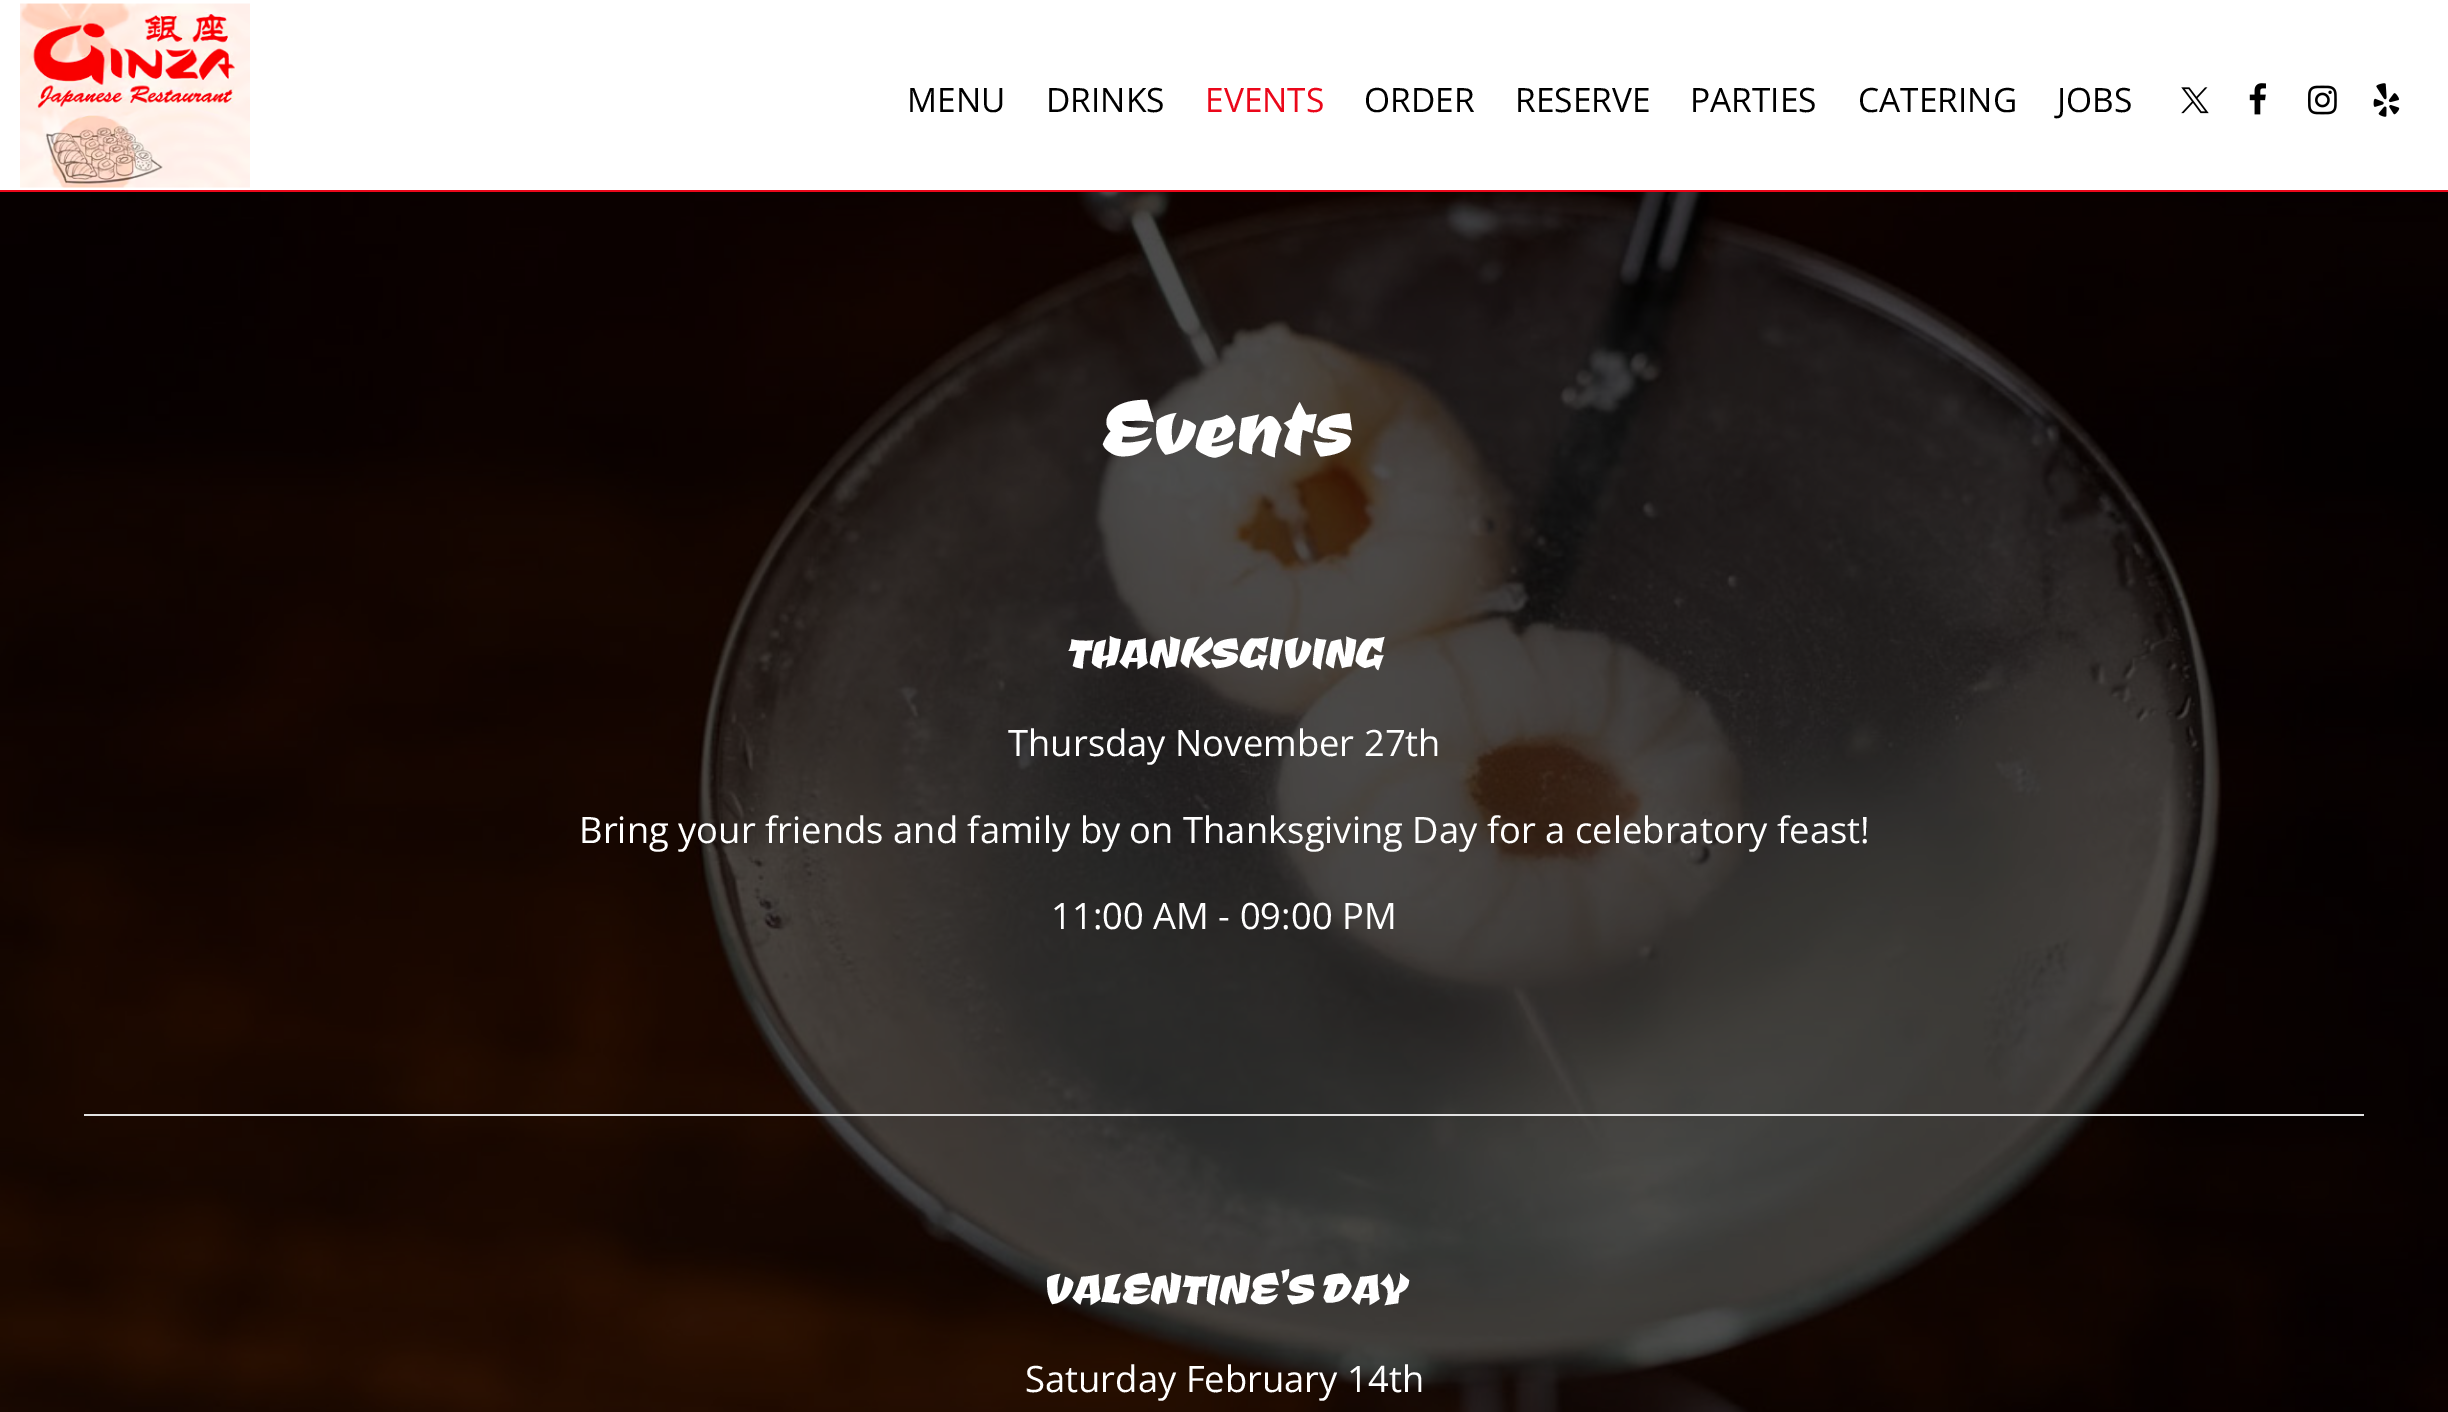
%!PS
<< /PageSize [2448 1412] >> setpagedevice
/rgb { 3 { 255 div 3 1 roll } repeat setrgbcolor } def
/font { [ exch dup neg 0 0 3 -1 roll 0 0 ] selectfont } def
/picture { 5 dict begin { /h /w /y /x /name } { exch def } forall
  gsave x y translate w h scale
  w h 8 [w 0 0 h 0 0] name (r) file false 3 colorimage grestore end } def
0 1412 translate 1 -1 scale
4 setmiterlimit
255 255 255 rgb
0 0 2448 1412 rectfill
(img/1.rgb) 0 192 2448 1220 picture
235 7 26 rgb
0 190 2448 2 rectfill
(img/2.rgb) 20 3 230 185 picture
(img/3.rgb) 2181 87 28 27 picture
(img/4.rgb) 2249 83 17 32 picture
(img/5.rgb) 2308 85 29 30 picture
(img/6.rgb) 2373 83 27 34 picture
226 226 226 rgb
84 1114 2280 2 rectfill
/OpenSans-Regular 33.5 font
0 0 0 rgb
907 112 moveto (MENU) show
1046 112 moveto (DRINKS) show
235 7 26 rgb
1205 112 moveto (EVENTS) show
0 0 0 rgb
[
  [(ORDER) 1364 112]
  [(RESERVE) 1515 112]
  [(PARTIES) 1690 112]
  [(CATERING) 1858 112]
  [(JOBS) 2057 112]
] { aload pop moveto show } forall
/CevicheOne-Regular 101 font
255 255 255 rgb
1098 454 moveto (Events) show
/CevicheOne-Regular 56 font
1065 667 moveto (THANKSGIVING) show
/OpenSans-Regular 36.4 font
[
  [(Thursday November 27th) 1008 756]
  [(Bring your friends and family by on Thanksgiving Day for a celebratory feast!) 579 843]
  [(11:00 AM - 09:00 PM) 1051 929]
] { aload pop moveto show } forall
/CevicheOne-Regular 56 font
1042 1303 moveto (VALENTINE'S DAY) show
/OpenSans-Regular 36.4 font
1025 1392 moveto (Saturday February 14th) show
showpage
